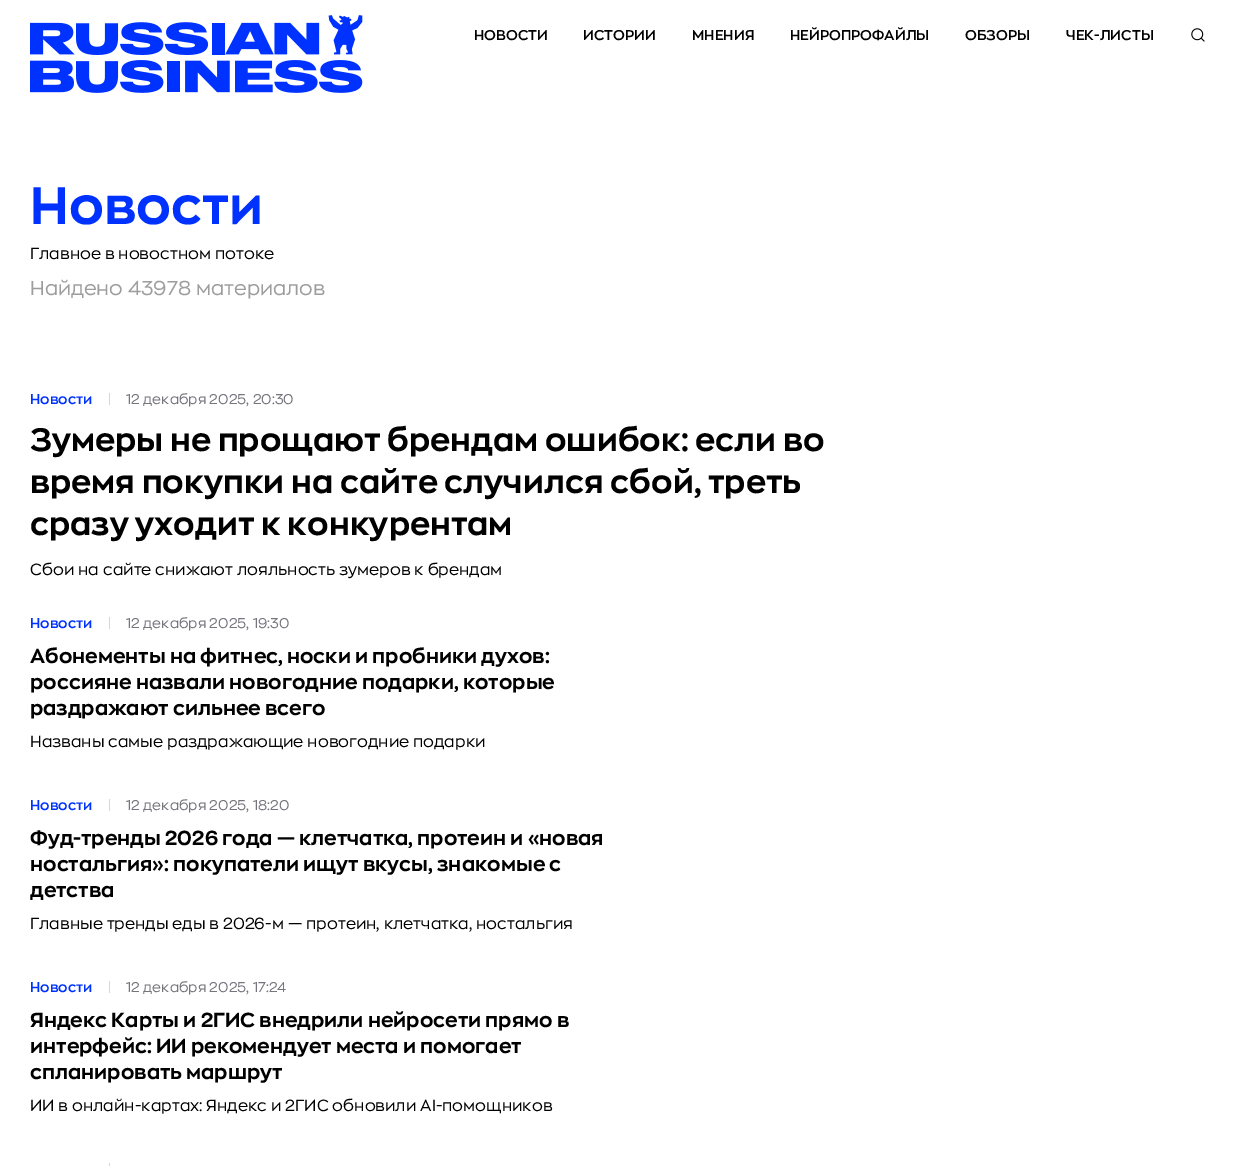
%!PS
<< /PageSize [1237 1166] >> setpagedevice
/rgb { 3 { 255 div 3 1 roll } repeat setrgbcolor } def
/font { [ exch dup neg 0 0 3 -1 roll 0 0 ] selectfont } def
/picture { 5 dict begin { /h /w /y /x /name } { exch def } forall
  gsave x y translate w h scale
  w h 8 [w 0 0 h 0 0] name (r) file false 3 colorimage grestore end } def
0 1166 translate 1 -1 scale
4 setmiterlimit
255 255 255 rgb
0 0 1237 1166 rectfill
(img/1.rgb) 30 15 333 78 picture
(img/2.rgb) 1191 28 14 14 picture
[
  [109 393 1 12 213 214 220]
  [109 617 1 12 213 214 220]
  [109 799 1 12 213 214 220]
  [109 981 1 12 213 214 220]
  [109 1163 1 3 213 214 220]
] { aload pop rgb rectfill } forall
/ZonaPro-SemiBold 14 font
0 0 0 rgb
[
  [(НОВОСТИ) 474 40]
  [(ИСТОРИИ) 583 40]
  [(МНЕНИЯ) 692 40]
  [(НЕЙРОПРОФАЙЛЫ) 790 40]
  [(ОБЗОРЫ) 965 40]
  [(ЧЕК-ЛИСТЫ) 1066 40]
] { aload pop moveto show } forall
/ZonaPro-Bold 52 font
0 50 255 rgb
30 224 moveto (Новости) show
/ZonaPro-Regular 16 font
0 0 0 rgb
30 259 moveto (Главное в новостном потоке) show
/ZonaPro-Regular 20 font
158 157 157 rgb
30 295 moveto (Найдено 43978 материалов) show
/ZonaPro-SemiBold 14 font
0 50 255 rgb
30 404 moveto (Новости) show
/ZonaPro-Regular 14 font
117 117 125 rgb
126 404 moveto (12 декабря 2025, 20:30) show
/ZonaPro-Bold 32 font
0 0 0 rgb
[
  [(Зумеры не прощают брендам ошибок: если во) 30 451]
  [(время покупки на сайте случился сбой, треть) 30 493]
  [(сразу уходит к конкурентам) 30 535]
] { aload pop moveto show } forall
/ZonaPro-Regular 16 font
30 575 moveto (Сбои на сайте снижают лояльность зумеров к брендам) show
/ZonaPro-SemiBold 14 font
0 50 255 rgb
30 628 moveto (Новости) show
/ZonaPro-Regular 14 font
117 117 125 rgb
126 628 moveto (12 декабря 2025, 19:30) show
/ZonaPro-Bold 20 font
0 0 0 rgb
[
  [(Абонементы на фитнес, носки и пробники духов:) 30 663]
  [(россияне назвали новогодние подарки, которые) 30 689]
  [(раздражают сильнее всего) 30 715]
] { aload pop moveto show } forall
/ZonaPro-Regular 16 font
30 747 moveto (Названы самые раздражающие новогодние подарки) show
/ZonaPro-SemiBold 14 font
0 50 255 rgb
30 810 moveto (Новости) show
/ZonaPro-Regular 14 font
117 117 125 rgb
126 810 moveto (12 декабря 2025, 18:20) show
/ZonaPro-Bold 20 font
0 0 0 rgb
[
  [(Фуд-тренды 2026 года — клетчатка, протеин и «новая) 30 845]
  [(ностальгия»: покупатели ищут вкусы, знакомые с) 30 871]
  [(детства) 30 897]
] { aload pop moveto show } forall
/ZonaPro-Regular 16 font
30 929 moveto (Главные тренды еды в 2026-м — протеин, клетчатка, ностальгия) show
/ZonaPro-SemiBold 14 font
0 50 255 rgb
30 992 moveto (Новости) show
/ZonaPro-Regular 14 font
117 117 125 rgb
126 992 moveto (12 декабря 2025, 17:24) show
/ZonaPro-Bold 20 font
0 0 0 rgb
[
  [(Яндекс Карты и 2ГИС внедрили нейросети прямо в) 30 1027]
  [(интерфейс: ИИ рекомендует места и помогает) 30 1053]
  [(спланировать маршрут) 30 1079]
] { aload pop moveto show } forall
/ZonaPro-Regular 16 font
30 1111 moveto (ИИ в онлайн-картах: Яндекс и 2ГИС обновили AI-помощников) show
showpage
